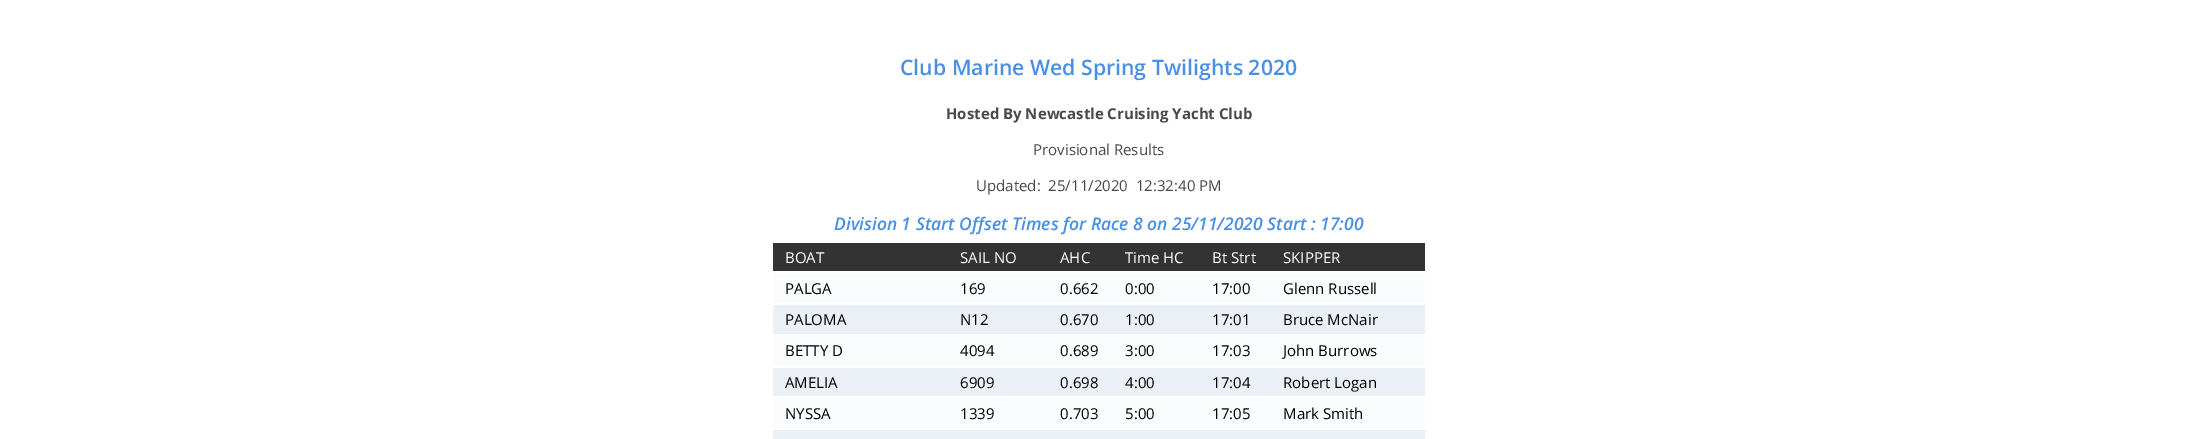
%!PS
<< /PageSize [2197 439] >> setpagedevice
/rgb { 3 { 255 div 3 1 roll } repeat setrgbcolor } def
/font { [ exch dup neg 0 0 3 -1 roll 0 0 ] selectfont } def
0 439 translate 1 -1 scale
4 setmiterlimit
255 255 255 rgb
0 0 2197 439 rectfill
[
  [773 243 652 28 51 51 51]
  [773 274 652 29 251 252 253]
  [773 305 652 29 235 240 247]
  [773 336 652 29 251 252 253]
  [773 368 652 28 235 240 247]
  [773 399 652 29 251 252 253]
  [773 430 652 9 235 240 247]
] { aload pop rgb rectfill } forall
/OpenSans-SemiBold 21.25 font
74 144 226 rgb
900 75 moveto (Club Marine Wed Spring Twilights 2020) show
/OpenSans-Bold 15 font
74 74 74 rgb
946 119 moveto (Hosted By Newcastle Cruising Yacht Club) show
/OpenSans-Regular 15 font
1033 155 moveto (Provisional Results) show
976 191 moveto (Updated:  25/11/2020  12:32:40 PM) show
/OpenSans-SemiBoldItalic 17.5 font
74 144 226 rgb
834 230 moveto (Division 1 Start Offset Times for Race 8 on 25/11/2020 Start : 17:00) show
/OpenSans-Regular 15 font
255 255 255 rgb
[
  [(BOAT) 785 263]
  [(SAIL NO) 960 263]
  [(AHC) 1060 263]
  [(Time HC) 1125 263]
  [(Bt Strt) 1212 263]
  [(SKIPPER) 1283 263]
] { aload pop moveto show } forall
0 0 0 rgb
[
  [(PALGA) 785 294]
  [(169) 960 294]
  [(0.662) 1060 294]
  [(0:00) 1125 294]
  [(17:00) 1212 294]
  [(Glenn Russell) 1283 294]
  [(PALOMA) 785 325]
  [(N12) 960 325]
  [(0.670) 1060 325]
  [(1:00) 1125 325]
  [(17:01) 1212 325]
  [(Bruce McNair) 1283 325]
  [(BETTY D) 785 356]
  [(4094) 960 356]
  [(0.689) 1060 356]
  [(3:00) 1125 356]
  [(17:03) 1212 356]
  [(John Burrows) 1283 356]
  [(AMELIA) 785 388]
  [(6909) 960 388]
  [(0.698) 1060 388]
  [(4:00) 1125 388]
  [(17:04) 1212 388]
  [(Robert Logan) 1283 388]
  [(NYSSA) 785 419]
  [(1339) 960 419]
  [(0.703) 1060 419]
  [(5:00) 1125 419]
  [(17:05) 1212 419]
  [(Mark Smith) 1283 419]
] { aload pop moveto show } forall
showpage
